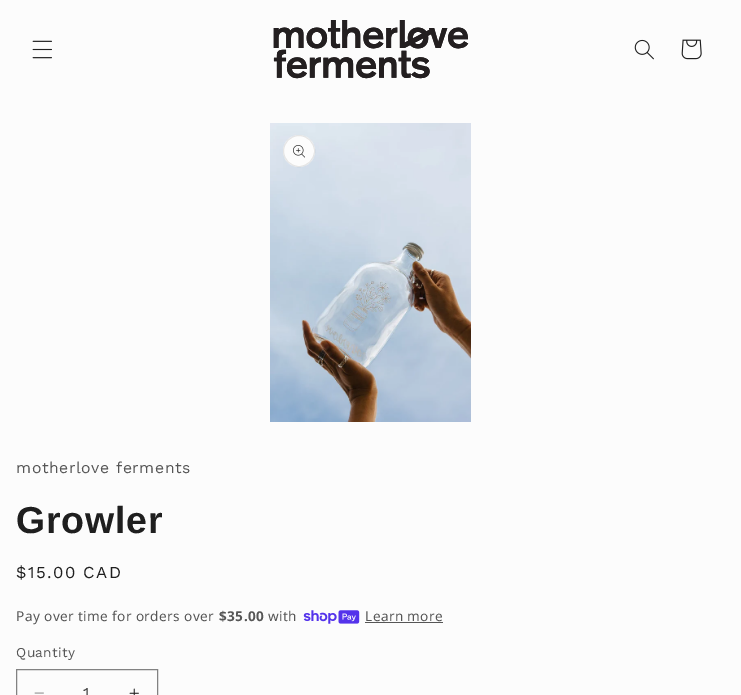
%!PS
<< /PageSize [741 695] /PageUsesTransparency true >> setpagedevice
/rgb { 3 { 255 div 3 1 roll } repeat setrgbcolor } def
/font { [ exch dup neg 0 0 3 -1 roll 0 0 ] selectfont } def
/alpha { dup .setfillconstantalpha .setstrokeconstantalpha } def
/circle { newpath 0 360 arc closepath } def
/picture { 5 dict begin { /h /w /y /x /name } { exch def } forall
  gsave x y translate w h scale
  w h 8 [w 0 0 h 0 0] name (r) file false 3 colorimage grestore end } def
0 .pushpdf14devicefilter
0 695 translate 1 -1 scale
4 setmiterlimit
252 252 252 rgb
0 0 741 695 rectfill
(img/1.rgb) 32 40 20 19 picture
(img/2.rgb) 273 20 196 59 picture
(img/3.rgb) 634 39 20 21 picture
(img/4.rgb) 681 39 21 21 picture
(img/5.rgb) 270 123 201 299 picture
299 151 16 circle fill
0.1 alpha
31 31 31 rgb
299 151 15.5 circle stroke
1 alpha
(img/6.rgb) 293 145 12 13 picture
(img/7.rgb) 303 610 57 14 picture
86 86 86 rgb
365 622 78 1 rectfill
(img/8.rgb) 34 692 10 2 picture
(img/9.rgb) 129 688 10 7 picture
130 130 130 rgb
16.5 669.5 141 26 rectstroke
/WorkSans-Regular 15.75 font
86 86 86 rgb
16 473 moveto 0.6 0 (motherlove ferments) ashow
/LiberationSans-Bold 37.5 font
31 31 31 rgb
16 533 moveto 0.75 0 (Growler) ashow
/WorkSans-Regular 16.75 font
16 578 moveto 1.4 0 ($15.00 CAD) ashow
/NotoSans-Regular 13.6 font
86 86 86 rgb
16 621 moveto 0.4 0 (Pay over time for orders over) ashow
/NotoSans-Bold 13.6 font
219 621 moveto 0.4 0 ($35.00) ashow
/NotoSans-Regular 13.6 font
268 621 moveto 0.4 0 (with) ashow
365 621 moveto 0.4 0 (Learn more) ashow
/WorkSans-Regular 13.6 font
16 657 moveto 0.4 0 (Quantity) ashow
/WorkSans-Regular 16.75 font
64 64 64 rgb
83 699 moveto (1) show
.poppdf14devicefilter showpage
